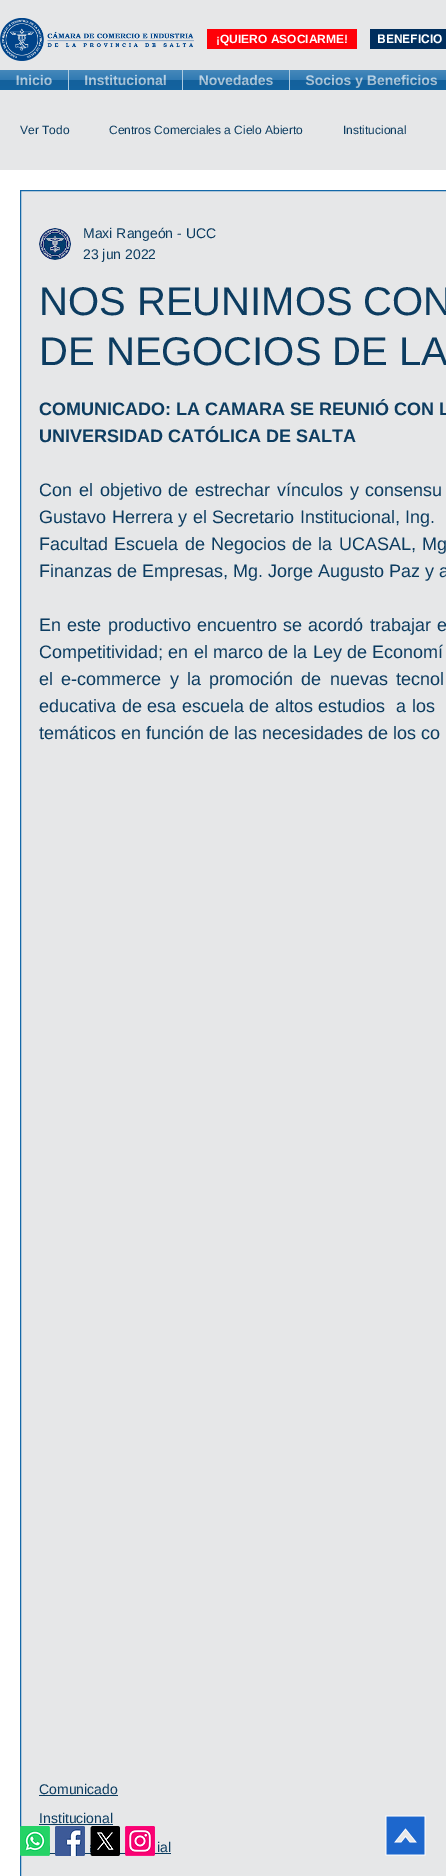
%!PS
<< /PageSize [446 1876] >> setpagedevice
/rgb { 3 { 255 div 3 1 roll } repeat setrgbcolor } def
/font { [ exch dup neg 0 0 3 -1 roll 0 0 ] selectfont } def
/picture { 5 dict begin { /h /w /y /x /name } { exch def } forall
  gsave x y translate w h scale
  w h 8 [w 0 0 h 0 0] name (r) file false 3 colorimage grestore end } def
0 1876 translate 1 -1 scale
4 setmiterlimit
255 255 255 rgb
0 0 446 1876 rectfill
230 231 232 rgb
0 0 446 70 rectfill
(img/1.rgb) 0 18 194 43 picture
[
  [207 29 150 20 255 0 8]
  [370 29 76 20 0 46 93]
  [0 70 68 20 20 104 168]
  [69 70 113 20 20 104 168]
  [68 70 1 20 175 203 224]
  [183 70 106 20 20 104 168]
  [182 70 1 20 175 203 224]
  [290 70 156 20 20 104 168]
  [289 70 1 20 175 203 224]
  [0 90 446 80 230 231 232]
] { aload pop rgb rectfill } forall
20.5 190.5 moveto 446.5 190.5 lineto 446.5 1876.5 lineto 20.5 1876.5 lineto closepath gsave fill grestore
20 104 168 rgb
stroke
(img/6.rgb) 39 228 32 32 picture
[
  [39 1795 79 1 12 60 96]
  [39 1824 74 1 12 60 96]
  [39 1853 132 1 12 60 96]
] { aload pop rgb rectfill } forall
(img/7.rgb) 20 1826 30 30 picture
(img/8.rgb) 55 1826 30 30 picture
(img/9.rgb) 90 1826 30 30 picture
(img/10.rgb) 125 1826 30 30 picture
(img/11.rgb) 385 1815 41 41 picture
/LiberationSans-Bold 12 font
255 255 255 rgb
216 43 moveto (¡QUIERO ASOCIARME!) show
/helvetica-Bold 12 font
377 43 moveto (BENEFICIO) show
/LiberationSans-Bold 14 font
175 203 224 rgb
16 85 moveto (Inicio) show
(img/2.rgb) 0 70 68 20 picture
84 85 moveto (Institucional) show
(img/3.rgb) 69 70 113 20 picture
199 85 moveto (Novedades) show
(img/4.rgb) 183 70 106 20 picture
305 85 moveto (Socios y Beneficios) show
(img/5.rgb) 290 70 156 20 picture
/LiberationSans-Regular 12 font
12 60 96 rgb
[
  [(Ver Todo) 20 134]
  [(Centros Comerciales a Cielo Abierto) 109 134]
  [(Institucional) 343 134]
] { aload pop moveto show } forall
/LiberationSans-Regular 14 font
83 238 moveto (Maxi Rangeón - UCC) show
83 259 moveto (23 jun 2022) show
/LiberationSans-Regular 40 font
39 315 moveto (NOS REUNIMOS CON) show
39 365 moveto (DE NEGOCIOS DE LA) show
/LiberationSans-Bold 18 font
39 415 moveto (COMUNICADO: LA CAMARA SE REUNIÓ CON L) show
39 442 moveto (UNIVERSIDAD CATÓLICA DE SALTA) show
/LiberationSans-Regular 18 font
39 496 moveto 1.75 0 32 (Con el objetivo de estrechar vínculos y consensu) widthshow
39 523 moveto 0.5 0 32 (Gustavo Herrera y el Secretario Institucional, Ing.) widthshow
39 550 moveto 1.25 0 32 (Facultad Escuela de Negocios de la UCASAL, Mg) widthshow
39 577 moveto (Finanzas de Empresas, Mg. Jorge Augusto Paz y a) show
39 631 moveto 1.25 0 32 (En este productivo encuentro se acordó trabajar e) widthshow
39 658 moveto 0.25 0 32 (Competitividad; en el marco de la Ley de Economí) widthshow
39 685 moveto 3.25 0 32 (el e-commerce y la promoción de nuevas tecnol) widthshow
39 712 moveto 0.5 0 32 (educativa de esa escuela de altos estudios  a los) widthshow
39 739 moveto (temáticos en función de las necesidades de los co) show
/LiberationSans-Regular 14 font
[
  [(Comunicado) 39 1794]
  [(Institucional) 39 1823]
  [(ial) 157 1852]
] { aload pop moveto show } forall
showpage
